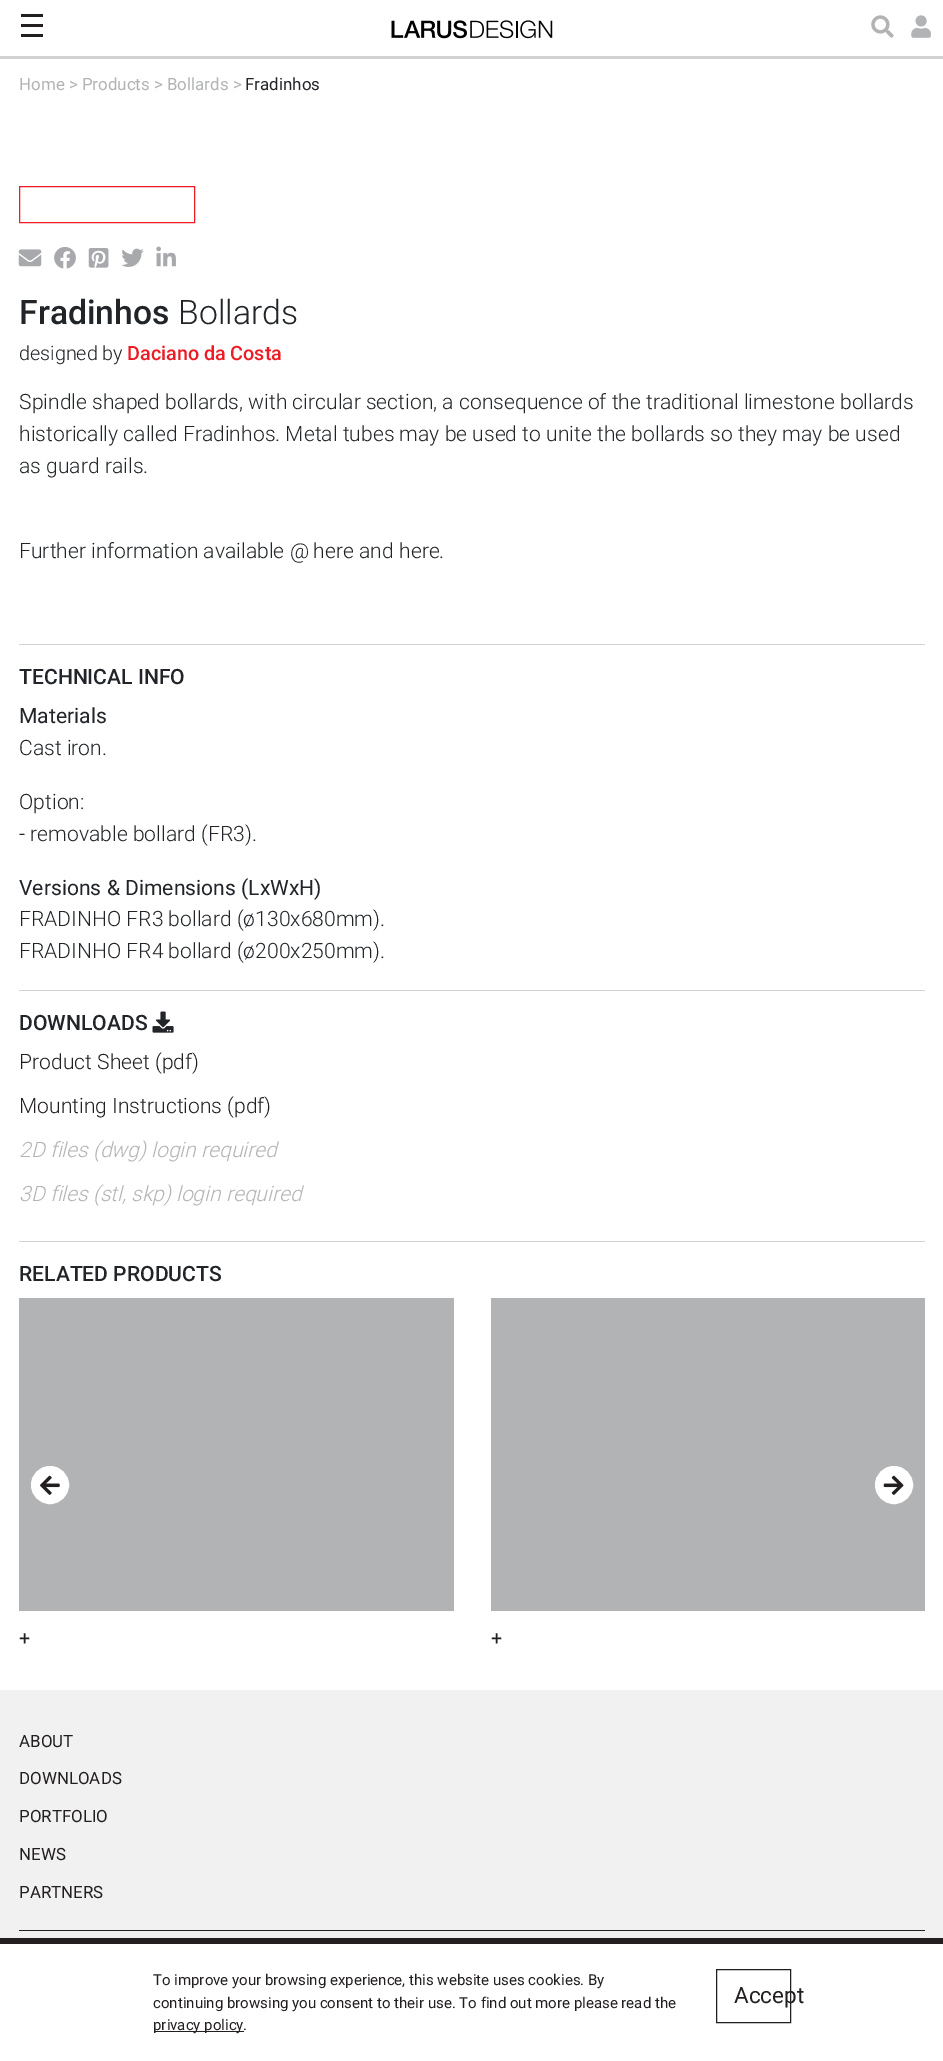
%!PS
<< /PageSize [943 2061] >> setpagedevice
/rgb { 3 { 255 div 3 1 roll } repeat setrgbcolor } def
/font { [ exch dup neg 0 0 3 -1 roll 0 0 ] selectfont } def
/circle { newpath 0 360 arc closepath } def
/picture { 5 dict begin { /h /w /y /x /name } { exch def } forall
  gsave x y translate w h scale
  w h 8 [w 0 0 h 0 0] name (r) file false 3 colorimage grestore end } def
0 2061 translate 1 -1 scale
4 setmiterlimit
255 255 255 rgb
0 0 943 2061 rectfill
[
  [0 56 943 3 209 211 212]
  [21 14 22 3 35 31 32]
  [21 24 22 3 35 31 32]
  [21 34 22 3 35 31 32]
] { aload pop rgb rectfill } forall
(img/1.rgb) 391 20 162 19 picture
(img/2.rgb) 871 15 23 23 picture
(img/3.rgb) 911 15 20 23 picture
237 28 36 rgb
19.5 186.5 175 36 rectstroke
(img/4.rgb) 18 249 24 18 picture
(img/5.rgb) 54 247 22 22 picture
(img/6.rgb) 88 248 21 20 picture
(img/7.rgb) 121 248 23 19 picture
(img/8.rgb) 156 246 20 21 picture
209 211 212 rgb
19 644 906 1 rectfill
19 990 906 1 rectfill
(img/9.rgb) 152 1011 22 22 picture
19 1241 906 1 rectfill
177 179 181 rgb
19 1298 435 313 rectfill
255 255 255 rgb
50 1485 18.5 circle gsave fill grestore
stroke
(img/10.rgb) 40 1475 20 20 picture
177 179 181 rgb
491 1298 434 313 rectfill
255 255 255 rgb
894 1485 18.5 circle gsave fill grestore
stroke
(img/11.rgb) 883 1475 21 20 picture
[
  [0 1690 943 248 241 241 242]
  [19 1930 906 1 35 31 32]
  [0 1938 943 6 35 31 32]
  [154 2031 90 1 35 31 32]
] { aload pop rgb rectfill } forall
716.5 1969.5 74 53 rectstroke
/Roboto-Regular 16.9 font
177 179 181 rgb
19 90 moveto (Home > Products > Bollards >) show
33 37 41 rgb
245 90 moveto (Fradinhos) show
/Roboto-Medium 33.75 font
19 324 moveto (Fradinhos) show
/Roboto-Light 33.75 font
178 324 moveto (Bollards) show
/Roboto-Light 19.75 font
19 360 moveto (designed by) show
/Roboto-Medium 19.75 font
237 28 36 rgb
127 360 moveto (Daciano da Costa) show
/Roboto-Light 21.1 font
33 37 41 rgb
[
  [(Spindle shaped bollards, with circular section, a consequence of the traditional limestone bollards) 19 409]
  [(historically called Fradinhos. Metal tubes may be used to unite the bollards so they may be used) 19 441]
  [(as guard rails.) 19 473]
  [(Further information available @) 19 558]
] { aload pop moveto show } forall
35 31 32 rgb
313 558 moveto (here) show
33 37 41 rgb
359 558 moveto (and) show
35 31 32 rgb
399 558 moveto (here) show
33 37 41 rgb
439 558 moveto (.) show
/Roboto-Medium 21.1 font
19 684 moveto (TECHNICAL INFO) show
/Roboto-Regular 21.1 font
19 723 moveto (Materials) show
/Roboto-Light 21.1 font
[
  [(Cast iron.) 19 755]
  [(Option:) 19 809]
  [(- removable bollard \(FR3\).) 19 841]
] { aload pop moveto show } forall
/Roboto-Regular 21.1 font
19 895 moveto (Versions & Dimensions \(LxWxH\)) show
/Roboto-Light 21.1 font
19 926 moveto (FRADINHO FR3 bollard \(ø130x680mm\).) show
19 958 moveto (FRADINHO FR4 bollard \(ø200x250mm\).) show
/Roboto-Medium 21.1 font
19 1030 moveto (DOWNLOADS) show
/Roboto-Light 21.1 font
35 31 32 rgb
19 1069 moveto (Product Sheet \(pdf\)) show
19 1113 moveto (Mounting Instructions \(pdf\)) show
/Roboto-LightItalic 21.1 font
177 179 181 rgb
19 1157 moveto (2D files \(dwg\) login required) show
19 1201 moveto (3D files \(stl, skp\) login required) show
/Roboto-Medium 21.1 font
33 37 41 rgb
19 1281 moveto (RELATED PRODUCTS) show
/Roboto-Regular 19.75 font
35 31 32 rgb
19 1645 moveto (+) show
491 1645 moveto (+) show
/Roboto-Regular 16.9 font
[
  [(ABOUT) 19 1747]
  [(DOWNLOADS) 19 1784]
  [(PORTFOLIO) 19 1822]
  [(NEWS) 19 1860]
  [(PARTNERS) 19 1898]
] { aload pop moveto show } forall
/Roboto-Regular 15 font
[
  [(To improve your browsing experience, this website uses cookies. By) 153 1985]
  [(continuing browsing you consent to their use. To find out more please read the) 153 2008]
  [(privacy policy.) 153 2030]
] { aload pop moveto show } forall
/Roboto-Regular 22.5 font
734 2003 moveto (Accept) show
showpage
